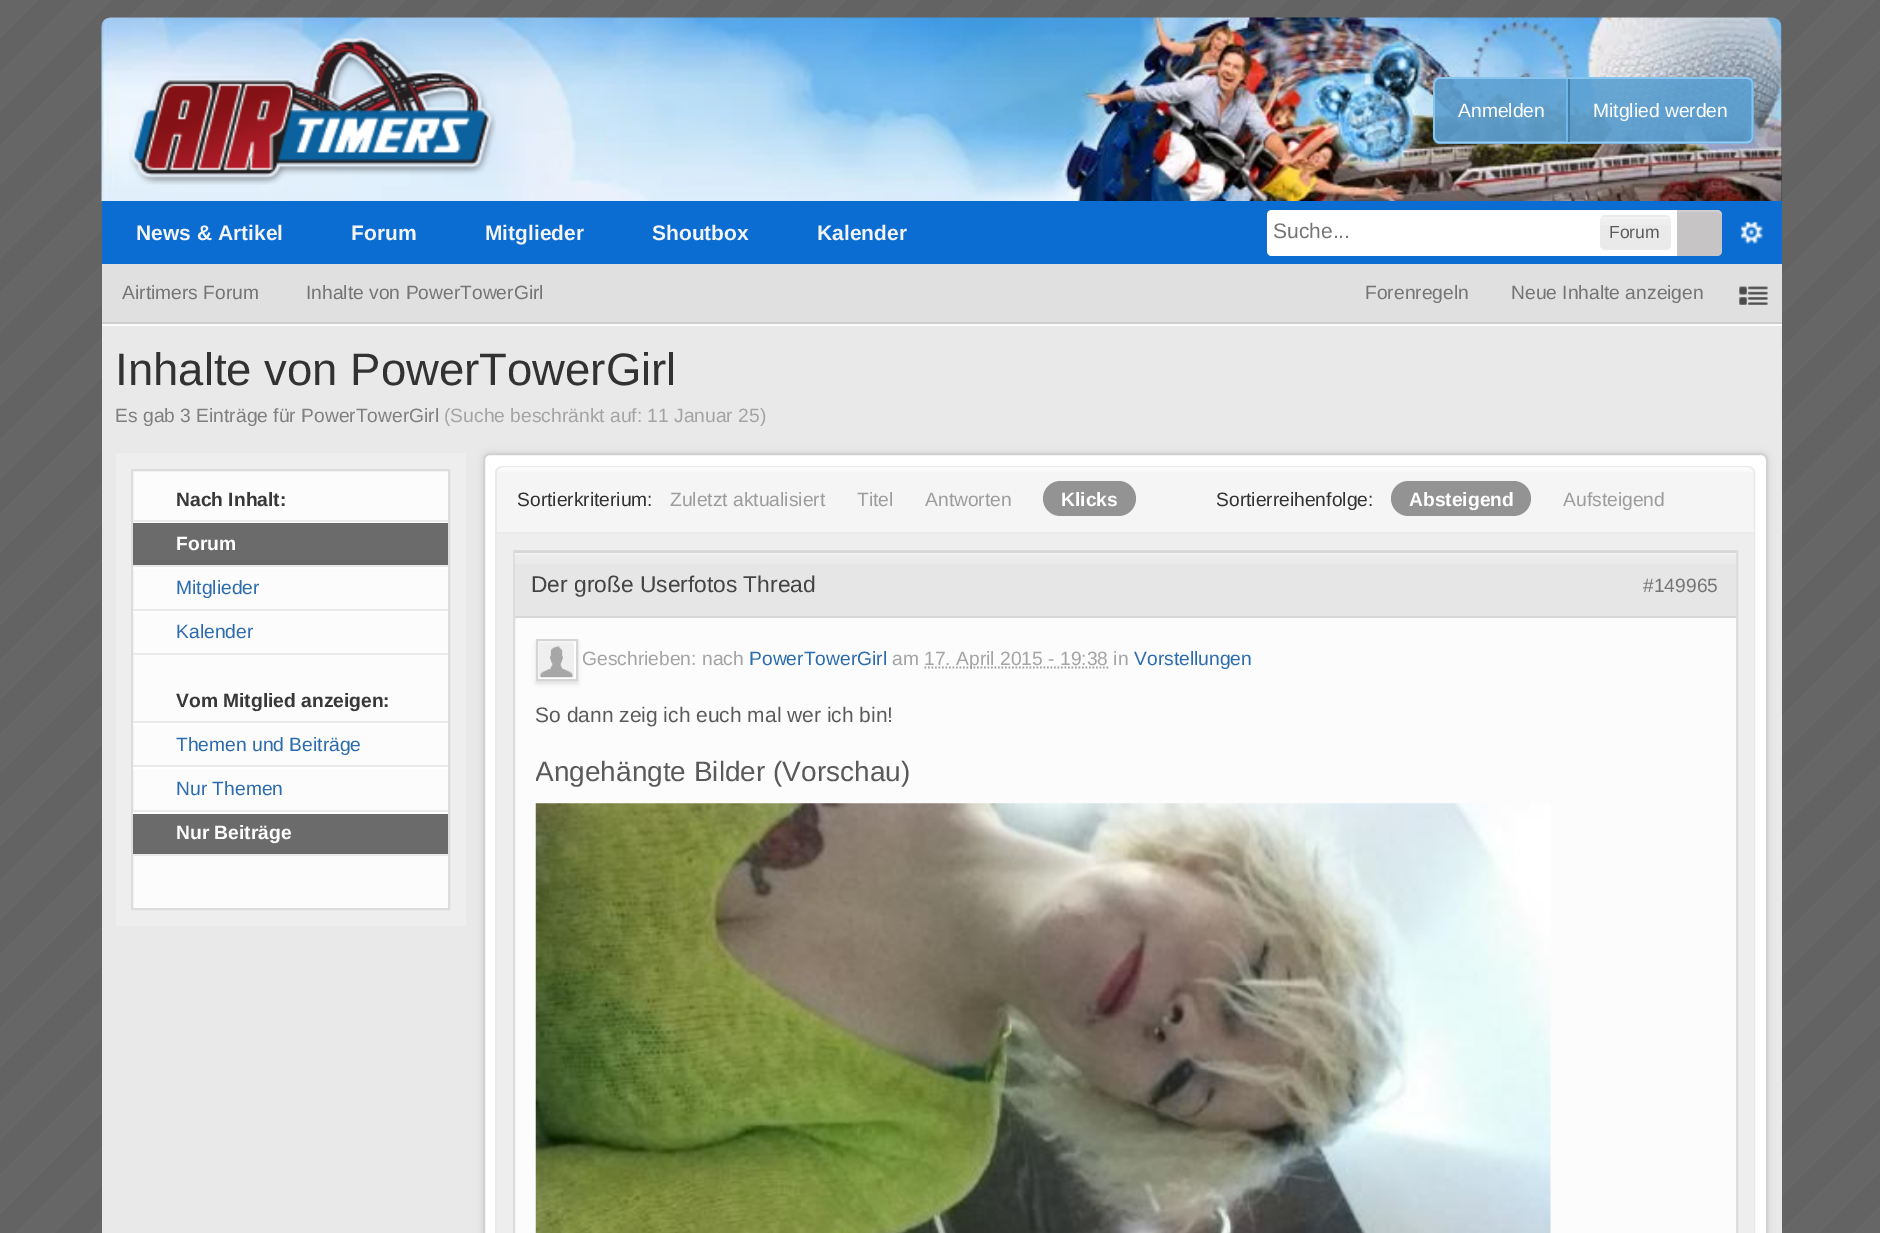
%!PS
<< /PageSize [1880 1233] /PageUsesTransparency true >> setpagedevice
/rgb { 3 { 255 div 3 1 roll } repeat setrgbcolor } def
/font { [ exch dup neg 0 0 3 -1 roll 0 0 ] selectfont } def
/alpha { dup .setfillconstantalpha .setstrokeconstantalpha } def
/roundrect { 5 dict begin { /r /h /w /y /x } { exch def } forall
  x r add y moveto x w add y 2 copy h add r arct x w add y h add x 1 index r arct
  x y h add x y r arct x y 2 copy exch w add exch r arct closepath end } def
/shadow { 12 dict begin { /a /b /q /h /w /y /x } { exch def } forall gsave /was 0 def
  9 -2 -9 { dup b mul 4 div /e exch def 1 sub .425 mul 2.718 exch exp 1 add a .99 .min exch div /now exch def
    1 1 now sub 1 was sub div sub alpha /was now def
    w h .min e 2 mul add 0 gt { x e sub y e sub w e 2 mul add h e 2 mul add
      q e add b .6 mul add w h .min 2 div e add .min 0 .max roundrect fill } if } for grestore end } def
/picture { 5 dict begin { /h /w /y /x /name } { exch def } forall
  gsave x y translate w h scale
  w h 8 [w 0 0 h 0 0] name (r) file false 3 colorimage grestore end } def
0 .pushpdf14devicefilter
0 1233 translate 1 -1 scale
4 setmiterlimit
255 255 255 rgb
0 0 1880 1233 rectfill
(img/1.rgb) 0 0 1880 1233 picture
51 51 51 rgb
111 18 moveto 1773 18 lineto 1778 18 1782 22 1782 27 curveto 1782 201 lineto 102 201 lineto 102 27 lineto 102 22 106 18 111 18 curveto closepath fill
(img/2.rgb) 101 17 1681 185 picture
(img/3.rgb) 129 36 367 149 picture
0.9 alpha
91 160 210 rgb
1433 77 321 67 7 roundrect fill
1 alpha
147 205 244 rgb
1.8 setlinewidth
1751 141 moveto 1749.5 142 1748 142.5 1746.5 142.5 curveto 1440 142.5 lineto 1438.5 142.5 1437 142 1436 141 curveto stroke
135 197 239 rgb
1436 141 moveto 1435 139.5 1434 138 1434 136.5 curveto 1434 84 lineto 1434 82.5 1435 81 1436 79.5 curveto 1437 78.5 1438.5 78 1440 78 curveto 1746.5 78 lineto 1748 78 1749.5 78.5 1751 79.5 curveto 1752 81 1752.5 82.5 1752.5 84 curveto 1752.5 136.5 lineto 1752.5 138 1752 139.5 1751 141 curveto stroke
[
  [1566 79 2 63 109 183 233]
  [1568 79 2 63 68 127 170]
  [102 201 1680 63 11 109 209]
] { aload pop rgb rectfill } forall
255 255 255 rgb
1272 210 moveto 1715 210 lineto 1719 210 1722 213 1722 217 curveto 1722 249 lineto 1722 253 1719 256 1715 256 curveto 1272 256 lineto 1269 256 1267 254 1267 251 curveto 1267 215 lineto 1267 212 1269 210 1272 210 curveto closepath fill
234 234 234 rgb
1600 215 71 35 5 roundrect fill
(img/4.rgb) 1600 217 71 8 picture
198 196 196 rgb
1677 210 moveto 1717 210 lineto 1720 210 1722 212 1722 215 curveto 1722 251 lineto 1722 254 1720 256 1717 256 curveto 1677 256 lineto closepath fill
0.2 alpha
255 255 255 rgb
1677 210 moveto 1677 212 lineto 1717 212 lineto 1720 212 1722 214 1722 217 curveto 1722 214 1721 210 1717 210 curveto closepath fill
1 alpha
(img/5.rgb) 1740 221 23 23 picture
233 233 233 rgb
102 326 1680 907 rectfill
251 251 251 rgb
102 324 moveto 102 326 lineto 1782 326 lineto 1782 266 lineto 1782 324 lineto closepath fill
224 224 224 rgb
102 264 1680 58 rectfill
206 206 206 rgb
102 322 1680 2 rectfill
(img/6.rgb) 1739 286 29 19 picture
(img/7.rgb) 1739 286 29 19 picture
238 238 238 rgb
116 453 350 473 rectfill
252 252 252 rgb
132 470 moveto 449 470 lineto 449 909 lineto 132 909 lineto closepath gsave fill grestore
220 220 220 rgb
2 setlinewidth
stroke
[
  [133 520 315 2 234 234 234]
  [133 522 315 1 255 255 255]
  [133 565 315 2 234 234 234]
  [133 523 315 42 107 107 107]
  [133 567 315 2 255 255 255]
  [133 609 315 2 234 234 234]
  [133 611 315 2 255 255 255]
  [133 653 315 2 234 234 234]
  [133 721 315 2 234 234 234]
  [133 723 315 2 255 255 255]
  [133 765 315 2 234 234 234]
  [133 767 315 2 255 255 255]
  [133 810 315 2 234 234 234]
  [133 812 315 2 255 255 255]
  [133 854 315 2 234 234 234]
  [133 814 315 40 107 107 107]
] { aload pop rgb rectfill } forall
0 0 0 rgb
483 453 1285 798 7 3.5 0.1 shadow
255 255 255 rgb
484 454 1283 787 6 roundrect gsave fill grestore
210 210 210 rgb
stroke
250 250 250 rgb
496 467 1258 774 6 roundrect gsave fill grestore
234 234 234 rgb
stroke
245 245 245 rgb
504 467 moveto 1747 467 lineto 1751 467 1754 470 1754 474 curveto 1754 534 lineto 497 534 lineto 497 474 lineto 497 470 500 467 504 467 curveto closepath fill
(img/8.rgb) 498 467 1254 5 picture
234 234 234 rgb
497 532 1257 2 rectfill
147 147 147 rgb
1043 481 93 35 17.5 roundrect fill
1391 481 140 35 17.5 roundrect fill
238 238 238 rgb
497 534 1257 699 rectfill
252 252 252 rgb
515 618 1221 615 rectfill
220 220 220 rgb
514 551 1223 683 rectstroke
230 230 230 rgb
515 553 1221 63 rectfill
(img/9.rgb) 514 553 1222 11 picture
215 215 215 rgb
515 551 1221 2 rectfill
515 616 1221 2 rectfill
0 0 0 rgb
536 642 42 42 0 2 0.1 shadow
255 255 255 rgb
537 640 moveto 577 640 lineto 577 680 lineto 537 680 lineto closepath gsave fill grestore
213 213 213 rgb
stroke
(img/10.rgb) 539 642 35 36 picture
164 164 164 rgb
1.8 setlinewidth
[1.75 1.75] 0 setdash
924.5 667.5 moveto 1108.5 667.5 lineto stroke
(img/11.rgb) 535 803 1016 430 picture
/LiberationSans-Regular 19.25 font
255 255 255 rgb
1458 117 moveto (Anmelden) show
1593 117 moveto (Mitglied werden) show
/LiberationSans-Bold 21 font
244 244 244 rgb
[
  [(News & Artikel) 136 240]
  [(Forum) 351 240]
  [(Mitglieder) 485 240]
  [(Shoutbox) 652 240]
  [(Kalender) 817 240]
] { aload pop moveto show } forall
/LiberationSans-Regular 21 font
117 117 117 rgb
1273 238 moveto (Suche...) show
/LiberationSans-Regular 17.5 font
90 90 90 rgb
1609 238 moveto (Forum) show
/LiberationSans-Regular 19.25 font
117 117 117 rgb
[
  [(Airtimers Forum) 122 299]
  [(Inhalte von PowerTowerGirl) 306 299]
  [(Forenregeln) 1365 299]
  [(Neue Inhalte anzeigen) 1511 299]
] { aload pop moveto show } forall
/LiberationSans-Regular 45.5 font
50 50 50 rgb
115 385 moveto (Inhalte von PowerTowerGirl) show
/LiberationSans-Regular 19.25 font
127 127 127 rgb
115 422 moveto (Es gab 3 Einträge für PowerTowerGirl) show
164 164 164 rgb
444 422 moveto (\(Suche beschränkt auf: 11 Januar 25\)) show
/LiberationSans-Bold 19.25 font
56 56 56 rgb
176 506 moveto (Nach Inhalt:) show
255 255 255 rgb
176 550 moveto (Forum) show
/LiberationSans-Regular 19.25 font
44 108 174 rgb
176 594 moveto (Mitglieder) show
176 638 moveto (Kalender) show
/LiberationSans-Bold 19.25 font
56 56 56 rgb
176 707 moveto (Vom Mitglied anzeigen:) show
/LiberationSans-Regular 19.25 font
44 108 174 rgb
176 751 moveto (Themen und Beiträge) show
176 795 moveto (Nur Themen) show
/LiberationSans-Bold 19.25 font
255 255 255 rgb
176 839 moveto (Nur Beiträge) show
/LiberationSans-Regular 19.25 font
50 50 50 rgb
517 506 moveto (Sortierkriterium:) show
157 157 157 rgb
[
  [(Zuletzt aktualisiert) 670 506]
  [(Titel) 857 506]
  [(Antworten) 925 506]
] { aload pop moveto show } forall
/LiberationSans-Bold 19.25 font
255 255 255 rgb
1061 506 moveto (Klicks) show
/LiberationSans-Regular 19.25 font
50 50 50 rgb
1216 506 moveto (Sortierreihenfolge:) show
/LiberationSans-Bold 19.25 font
255 255 255 rgb
1409 506 moveto (Absteigend) show
/LiberationSans-Regular 19.25 font
157 157 157 rgb
1563 506 moveto (Aufsteigend) show
/LiberationSans-Regular 22.75 font
68 68 68 rgb
531 592 moveto (Der große Userfotos Thread) show
/LiberationSans-Regular 19.25 font
117 117 117 rgb
1643 592 moveto (#149965) show
164 164 164 rgb
582 665 moveto (Geschrieben: nach) show
44 108 174 rgb
749 665 moveto (PowerTowerGirl) show
164 164 164 rgb
892 665 moveto (am) show
924 665 moveto (17. April 2015 - 19:38 in) show
44 108 174 rgb
1134 665 moveto (Vorstellungen) show
/LiberationSans-Regular 21 font
90 90 90 rgb
535 722 moveto (So dann zeig ich euch mal wer ich bin!) show
gsave
536 749 1179 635 rectclip
/LiberationSans-Regular 28 font
535 781 moveto (Angehängte Bilder \(Vorschau\)) show
grestore
.poppdf14devicefilter showpage
